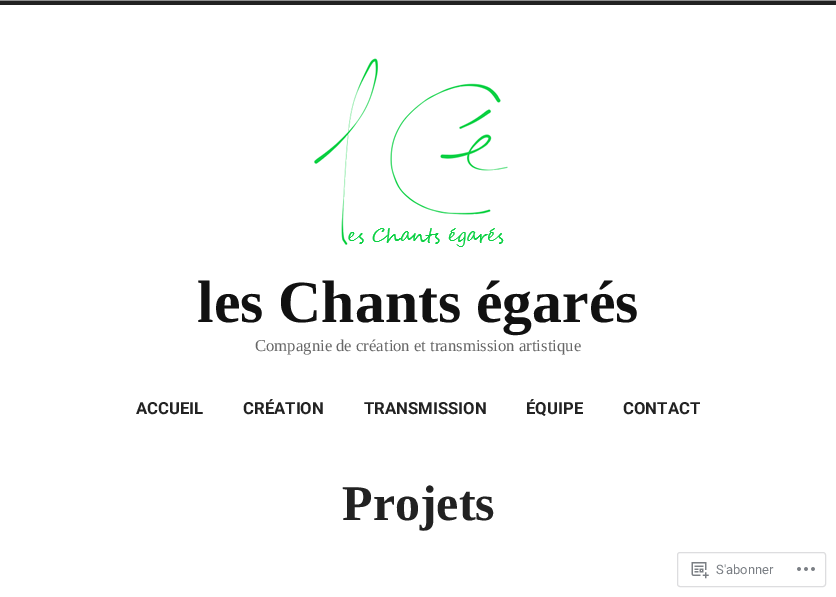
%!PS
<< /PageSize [836 597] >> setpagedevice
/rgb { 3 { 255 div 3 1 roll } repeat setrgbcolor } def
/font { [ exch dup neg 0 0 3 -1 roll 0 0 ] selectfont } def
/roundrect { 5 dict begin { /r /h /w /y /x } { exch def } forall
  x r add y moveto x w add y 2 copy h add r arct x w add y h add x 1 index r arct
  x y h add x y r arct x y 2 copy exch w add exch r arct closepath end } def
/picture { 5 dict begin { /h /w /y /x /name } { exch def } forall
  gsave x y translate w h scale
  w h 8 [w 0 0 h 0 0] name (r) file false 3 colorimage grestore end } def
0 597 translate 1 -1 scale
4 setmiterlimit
255 255 255 rgb
0 0 836 597 rectfill
34 34 34 rgb
0 1 836 4 rectfill
145 145 145 rgb
0 0 836 1 rectfill
(img/1.rgb) 314 58 194 189 picture
221 221 223 rgb
677.5 552.5 148 34 2.5 roundrect stroke
(img/2.rgb) 691 562 18 17 picture
(img/3.rgb) 797 567 18 4 picture
/LiberationSerif-Bold 59.75 font
17 17 17 rgb
197 322 moveto (les Chants égarés) show
/LiberationSerif-Regular 16.7 font
102 102 102 rgb
255 351 moveto (Compagnie de création et transmission artistique) show
/Roboto-Bold 16.7 font
34 34 34 rgb
[
  [(ACCUEIL) 136 414]
  [(CRÉATION) 243 414]
  [(TRANSMISSION) 364 414]
  [(ÉQUIPE) 526 414]
  [(CONTACT) 623 414]
] { aload pop moveto show } forall
/LiberationSerif-Bold 50 font
342 520 moveto (Projets) show
/Roboto-Regular 13 font
123 127 133 rgb
716 574 moveto (S'abonner) show
showpage
